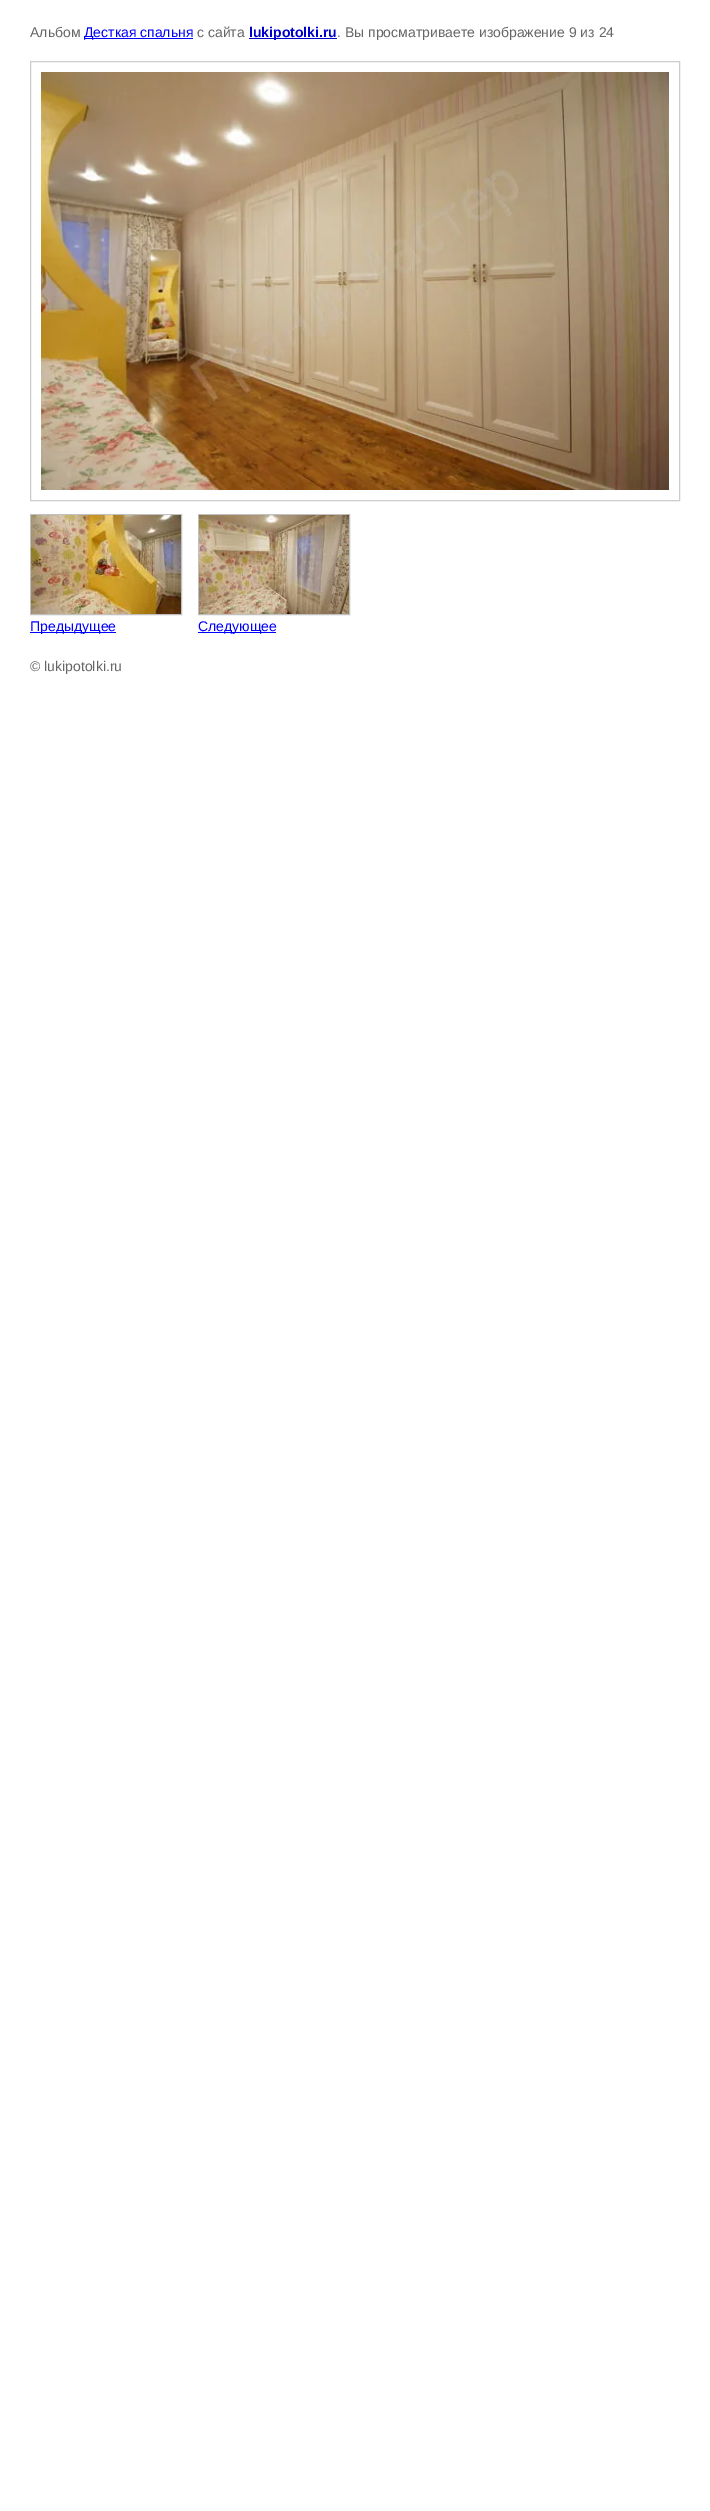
%!PS
<< /PageSize [710 2511] >> setpagedevice
/rgb { 3 { 255 div 3 1 roll } repeat setrgbcolor } def
/font { [ exch dup neg 0 0 3 -1 roll 0 0 ] selectfont } def
/picture { 5 dict begin { /h /w /y /x /name } { exch def } forall
  gsave x y translate w h scale
  w h 8 [w 0 0 h 0 0] name (r) file false 3 colorimage grestore end } def
0 2511 translate 1 -1 scale
4 setmiterlimit
255 255 255 rgb
0 0 710 2511 rectfill
0 0 255 rgb
84 38 109 1 rectfill
0 0 204 rgb
249 38 88 1 rectfill
204 204 204 rgb
30.5 61.5 649 439 rectstroke
(img/1.rgb) 41 72 628 418 picture
192 192 192 rgb
30.5 514.5 151 100 rectstroke
(img/2.rgb) 31 515 150 99 picture
0 0 255 rgb
30 632 86 1 rectfill
192 192 192 rgb
198.5 514.5 151 100 rectstroke
(img/3.rgb) 199 515 150 99 picture
0 0 255 rgb
198 632 78 1 rectfill
/LiberationSans-Regular 14 font
102 102 102 rgb
30 37 moveto (Альбом) show
0 0 255 rgb
84 37 moveto (Десткая спальня) show
102 102 102 rgb
197 37 moveto (с сайта) show
/LiberationSans-Bold 14 font
0 0 204 rgb
249 37 moveto (lukipotolki.ru) show
/LiberationSans-Regular 14 font
102 102 102 rgb
337 37 moveto (. Вы просматриваете изображение 9 из 24) show
0 0 255 rgb
30 631 moveto (Предыдущее) show
198 631 moveto (Следующее) show
102 102 102 rgb
30 671 moveto (© lukipotolki.ru) show
showpage
